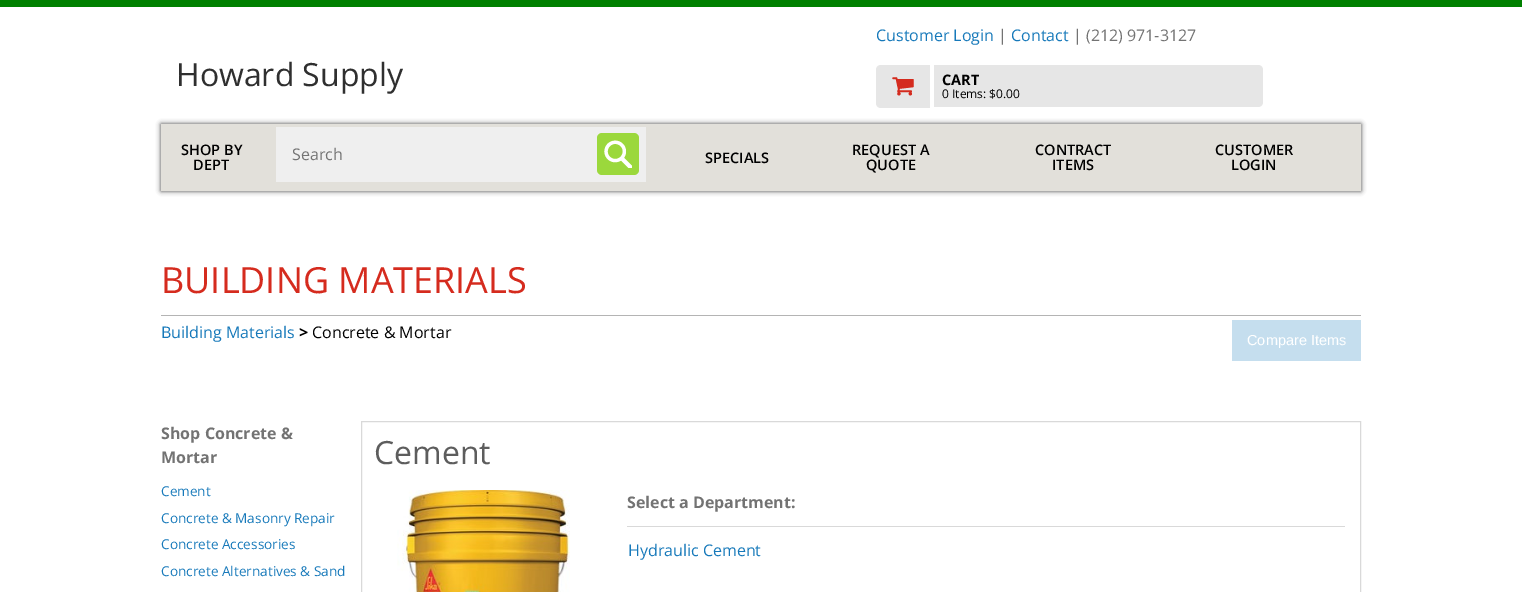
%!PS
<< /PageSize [1522 592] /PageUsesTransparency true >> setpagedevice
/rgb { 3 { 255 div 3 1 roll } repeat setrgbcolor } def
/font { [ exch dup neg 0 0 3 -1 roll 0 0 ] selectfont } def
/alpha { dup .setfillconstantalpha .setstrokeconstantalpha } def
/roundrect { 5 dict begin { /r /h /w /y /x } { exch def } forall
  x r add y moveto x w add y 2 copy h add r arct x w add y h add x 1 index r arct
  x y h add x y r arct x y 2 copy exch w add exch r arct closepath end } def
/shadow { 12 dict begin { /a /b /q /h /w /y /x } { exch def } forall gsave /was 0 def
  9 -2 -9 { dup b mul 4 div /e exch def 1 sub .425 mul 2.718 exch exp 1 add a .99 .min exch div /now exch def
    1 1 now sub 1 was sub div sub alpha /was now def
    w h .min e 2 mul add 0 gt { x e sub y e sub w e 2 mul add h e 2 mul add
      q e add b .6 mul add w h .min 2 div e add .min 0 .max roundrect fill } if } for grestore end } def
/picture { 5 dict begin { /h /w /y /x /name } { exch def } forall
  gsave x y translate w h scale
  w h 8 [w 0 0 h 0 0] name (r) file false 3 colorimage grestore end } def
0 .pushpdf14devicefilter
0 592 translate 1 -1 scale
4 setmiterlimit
255 255 255 rgb
0 0 1522 592 rectfill
0 128 0 rgb
0 0 1522 7 rectfill
230 230 230 rgb
881 65 moveto 930 65 lineto 930 108 lineto 881 108 lineto 878 108 876 106 876 103 curveto 876 70 lineto 876 67 878 65 881 65 curveto closepath fill
(img/1.rgb) 892 77 22 19 picture
934 65 moveto 1258 65 lineto 1261 65 1263 67 1263 70 curveto 1263 102 lineto 1263 105 1261 107 1258 107 curveto 934 107 lineto closepath fill
68 68 68 rgb
161 124 1200 67 0 2.5 1 shadow
226 224 218 rgb
161 124 1200 67 rectfill
239 239 239 rgb
276 127 370 55 rectfill
155 216 60 rgb
597 133 42 42 5 roundrect fill
(img/2.rgb) 604 140 28 28 picture
180 180 180 rgb
161 315 1200 1 rectfill
197 222 238 rgb
1232 320 129 41 rectfill
217 217 217 rgb
361.5 421.5 999 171 rectstroke
(img/3.rgb) 397 490 173 102 picture
627 526 718 1 rectfill
/OpenSans-Regular 32 font
47 47 47 rgb
176 86 moveto (Howard Supply) show
/OpenSans-Regular 16 font
23 121 186 rgb
876 41 moveto (Customer Login) show
115 115 115 rgb
998 41 moveto (|) show
23 121 186 rgb
1011 41 moveto (Contact) show
115 115 115 rgb
1073 41 moveto (| \(212\) 971-3127) show
/OpenSans-Bold 14.5 font
0 0 0 rgb
942 85 moveto (CART) show
/OpenSans-Regular 12 font
942 98 moveto (0 Items: $0.00) show
/OpenSans-SemiBold 14.5 font
181 155 moveto (SHOP BY) show
193 170 moveto (DEPT) show
/OpenSans-Regular 16 font
115 115 115 rgb
292 160 moveto (Search) show
/OpenSans-SemiBold 14.5 font
0 0 0 rgb
[
  [(SPECIALS) 705 163]
  [(REQUEST A) 852 155]
  [(QUOTE) 866 170]
  [(CONTRACT) 1035 155]
  [(ITEMS) 1052 170]
  [(CUSTOMER) 1215 155]
  [(LOGIN) 1231 170]
] { aload pop moveto show } forall
/OpenSans-Regular 36 font
213 43 30 rgb
161 293 moveto (BUILDING MATERIALS) show
/OpenSans-Regular 16 font
23 121 186 rgb
161 338 moveto (Building Materials) show
/OpenSans-Bold 16 font
0 0 0 rgb
299 338 moveto (>) show
/OpenSans-Regular 16 font
312 338 moveto (Concrete & Mortar) show
/LiberationSans-Regular 14.5 font
255 255 255 rgb
1247 345 moveto (Compare Items) show
/OpenSans-Bold 16 font
115 115 115 rgb
161 439 moveto (Shop Concrete &) show
161 463 moveto (Mortar) show
/OpenSans-Regular 13.6 font
23 121 186 rgb
[
  [(Cement) 161 496]
  [(Concrete & Masonry Repair) 161 523]
  [(Concrete Accessories) 161 549]
  [(Concrete Alternatives & Sand) 161 576]
] { aload pop moveto show } forall
/OpenSans-Regular 32 font
93 93 93 rgb
374 464 moveto (Cement) show
/OpenSans-Bold 16 font
115 115 115 rgb
627 508 moveto (Select a Department:) show
/OpenSans-Regular 16 font
23 121 186 rgb
628 556 moveto (Hydraulic Cement) show
.poppdf14devicefilter showpage
